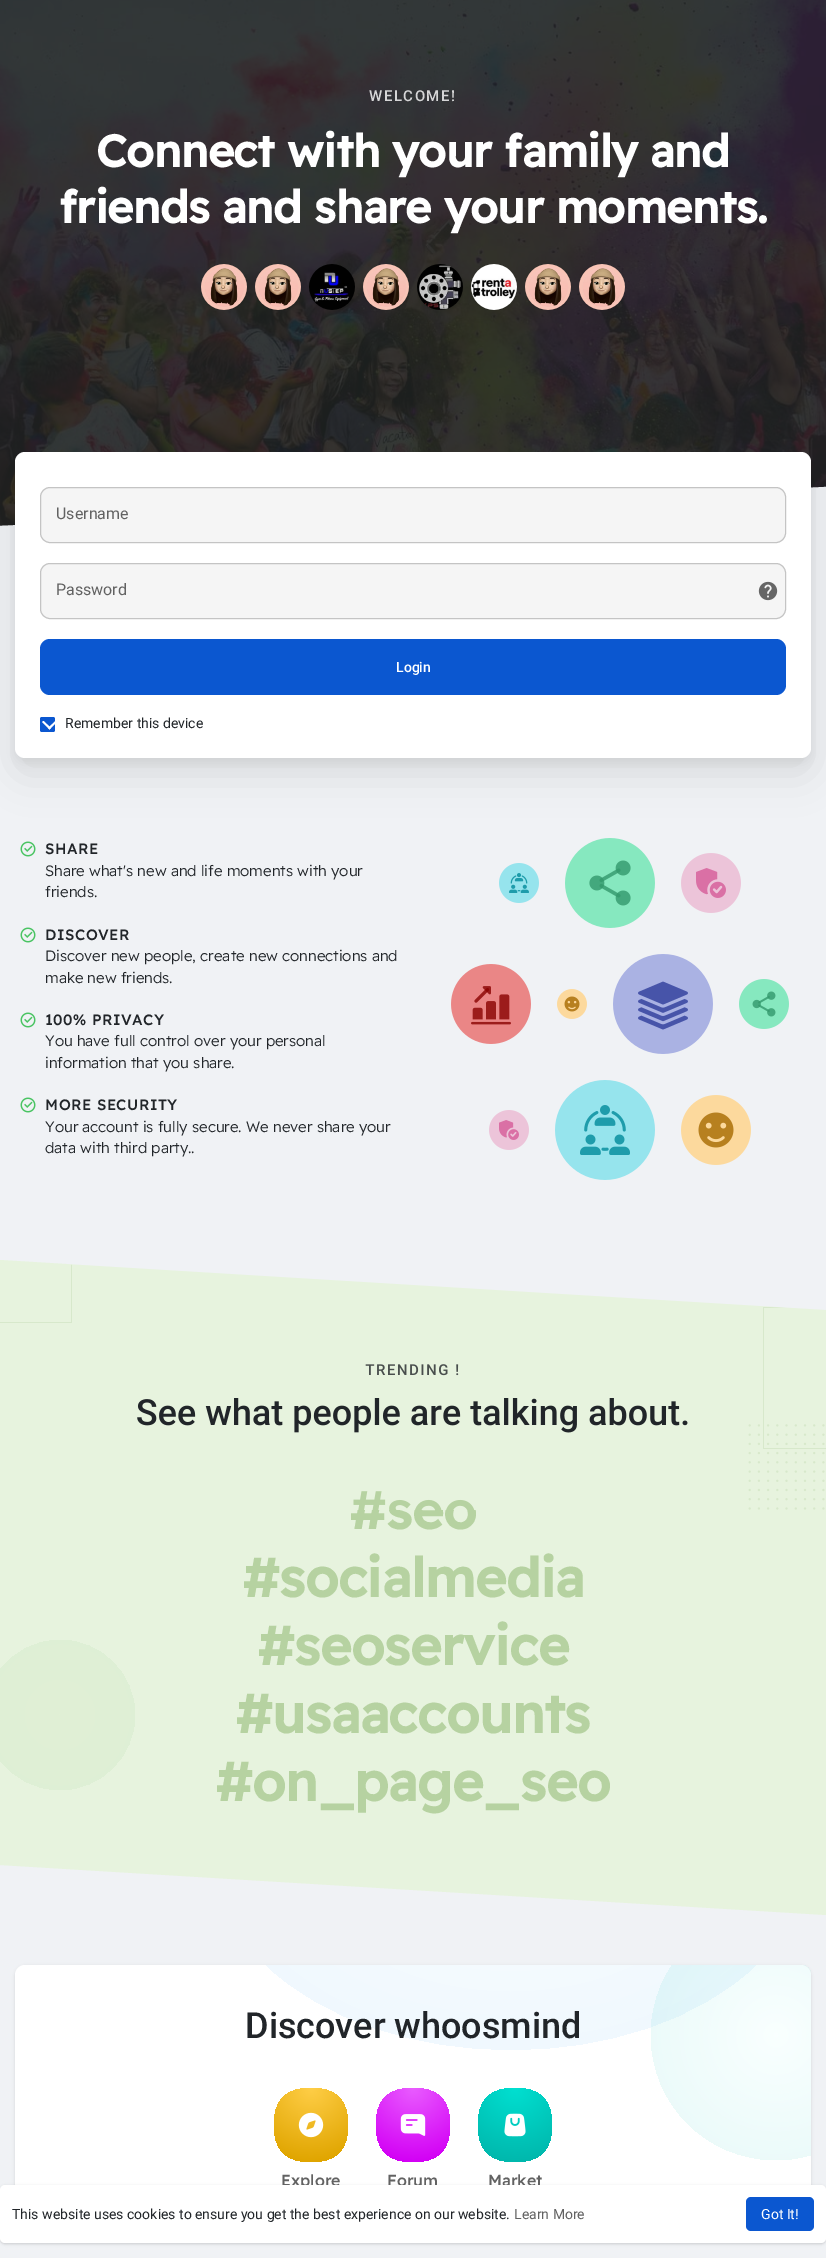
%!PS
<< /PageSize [826 2258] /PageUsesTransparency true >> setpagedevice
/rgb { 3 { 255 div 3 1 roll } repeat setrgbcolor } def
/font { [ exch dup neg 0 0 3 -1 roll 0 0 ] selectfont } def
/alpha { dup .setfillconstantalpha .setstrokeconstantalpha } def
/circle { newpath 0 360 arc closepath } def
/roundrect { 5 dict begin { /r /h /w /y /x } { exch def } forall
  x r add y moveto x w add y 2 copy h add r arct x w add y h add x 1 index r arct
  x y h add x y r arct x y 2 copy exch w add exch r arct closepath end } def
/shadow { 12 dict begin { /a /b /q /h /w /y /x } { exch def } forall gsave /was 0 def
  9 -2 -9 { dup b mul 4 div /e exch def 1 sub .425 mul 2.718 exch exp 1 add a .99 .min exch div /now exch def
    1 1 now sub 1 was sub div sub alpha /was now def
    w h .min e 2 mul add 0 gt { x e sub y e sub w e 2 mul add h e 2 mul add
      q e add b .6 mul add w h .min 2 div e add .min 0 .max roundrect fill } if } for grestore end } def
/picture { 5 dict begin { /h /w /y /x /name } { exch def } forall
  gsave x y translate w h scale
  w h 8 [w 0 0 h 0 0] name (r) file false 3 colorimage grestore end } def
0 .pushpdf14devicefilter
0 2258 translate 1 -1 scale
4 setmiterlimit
240 242 245 rgb
0 0 826 2258 rectfill
30 35 33 rgb
0 0 826 526 rectfill
(img/1.rgb) 0 0 826 526 picture
(img/2.rgb) 201 264 46 46 picture
(img/3.rgb) 255 264 46 46 picture
(img/4.rgb) 309 264 46 46 picture
(img/5.rgb) 363 264 46 46 picture
(img/6.rgb) 417 264 46 46 picture
(img/7.rgb) 471 264 46 46 picture
(img/8.rgb) 525 264 46 46 picture
(img/9.rgb) 579 264 46 46 picture
gsave
0 0 826 562 rectclip
240 242 245 rgb
-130 532 moveto 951 481 lineto 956 601 lineto -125 652 lineto closepath fill
grestore
0 0 0 rgb
15 467 796 306 10 20 0.1 shadow
15 457 796 306 10 5 0.05 shadow
255 255 255 rgb
15 452 796 306 10 roundrect fill
245 245 245 rgb
40 487 746 56 10 roundrect fill
0.2 alpha
0 0 0 rgb
40.5 487.5 745 55 9.5 roundrect stroke
1 alpha
245 245 245 rgb
40 563 746 56 10 roundrect fill
0.2 alpha
0 0 0 rgb
40.5 563.5 745 55 9.5 roundrect stroke
1 alpha
(img/10.rgb) 758 581 20 20 picture
11 87 208 rgb
40 639 746 56 10 roundrect fill
40 717 15 15 2 roundrect fill
255 255 255 rgb
48 728 moveto 55.5 721 lineto 57 722 lineto 49.5 729.5 lineto closepath fill
42 722 moveto 43.5 721 lineto 51 728 lineto 49.5 729.5 lineto closepath fill
(img/11.rgb) 20 841 16 16 picture
(img/11.rgb) 20 927 16 16 picture
(img/11.rgb) 20 1012 16 16 picture
(img/11.rgb) 20 1097 16 16 picture
(img/12.rgb) 499 863 40 40 picture
(img/13.rgb) 565 838 90 90 picture
(img/14.rgb) 681 853 60 60 picture
(img/15.rgb) 451 964 80 80 picture
(img/16.rgb) 557 989 30 30 picture
(img/17.rgb) 613 954 100 100 picture
(img/18.rgb) 739 979 50 50 picture
(img/19.rgb) 489 1110 40 40 picture
(img/20.rgb) 555 1080 100 100 picture
(img/21.rgb) 681 1095 70 70 picture
231 243 222 rgb
0 1260 moveto 0 1865 lineto 826 1915 lineto 826 1310 lineto closepath fill
gsave 60 1640 moveto 101 1640 135 1674 135 1715 curveto 135 1756 101 1790 60 1790 curveto 35 1790 14 1778 0 1760 curveto 0 1670 lineto 14 1652 35 1640 60 1640 curveto closepath clip newpath 60 1715 translate 106 106 scale
<< /ShadingType 3 /ColorSpace /DeviceRGB /Coords [0 0 0 0 0 1] /Extend [true true] /Function << /FunctionType 2 /Domain [0 1] /C0 [0.882 0.941 0.835] /C1 [0.871 0.937 0.835] /N 1 >> >> shfill grestore
0 0 0 rgb
15 1966 796 265 10 1.5 0.1 shadow
255 255 255 rgb
15 1965 796 265 10 roundrect fill
gsave 756 1965 moveto 637 2078 385 2078 266 1965 curveto closepath clip newpath 511 1850 translate 424 283 scale
<< /ShadingType 3 /ColorSpace /DeviceRGB /Coords [0 0 0 0 0 1] /Extend [true true] /Function << /FunctionType 2 /Domain [0 1] /C0 [0.98 0.992 1] /C1 [0.929 0.969 0.996] /N 1 >> >> shfill grestore
gsave
15 1965 796 265 10 roundrect clip newpath
0.1 alpha
gsave 776 2035 125 circle clip newpath 776 2035 translate 177 177 scale
<< /ShadingType 3 /ColorSpace /DeviceRGB /Coords [0 0 0 0 0 1] /Extend [true true] /Function << /FunctionType 2 /Domain [0 1] /C0 [0.753 1 0.984] /C1 [0 0.737 0.69] /N 1 >> >> shfill grestore
grestore
gsave 348 2125 moveto 348 2150 336 2162 311 2162 curveto 286 2162 274 2150 274 2125 curveto 274 2100 286 2088 311 2088 curveto 336 2088 348 2100 348 2125 curveto closepath clip newpath 311 2088 translate 74 74 scale
<< /ShadingType 3 /ColorSpace /DeviceRGB /Coords [0 0 0 0 0 1] /Extend [true true] /Function << /FunctionType 2 /Domain [0 1] /C0 [1 0.808 0.278] /C1 [0.878 0.647 0] /N 1 >> >> shfill grestore
(img/23.rgb) 298 2112 26 26 picture
gsave 450 2125 moveto 450 2150 438 2162 413 2162 curveto 388 2162 376 2150 376 2125 curveto 376 2100 388 2088 413 2088 curveto 438 2088 450 2100 450 2125 curveto closepath clip newpath 413 2088 translate 74 74 scale
<< /ShadingType 3 /ColorSpace /DeviceRGB /Coords [0 0 0 0 0 1] /Extend [true true] /Function << /FunctionType 2 /Domain [0 1] /C0 [0.914 0.361 1] /C1 [0.827 0 0.961] /N 1 >> >> shfill grestore
(img/24.rgb) 400 2114 26 22 picture
gsave 552 2125 moveto 552 2150 540 2162 515 2162 curveto 490 2162 478 2150 478 2125 curveto 478 2100 490 2088 515 2088 curveto 540 2088 552 2100 552 2125 curveto closepath clip newpath 515 2088 translate 74 74 scale
<< /ShadingType 3 /ColorSpace /DeviceRGB /Coords [0 0 0 0 0 1] /Extend [true true] /Function << /FunctionType 2 /Domain [0 1] /C0 [0 0.878 0.82] /C1 [0 0.722 0.678] /N 1 >> >> shfill grestore
(img/25.rgb) 504 2113 22 24 picture
0 0 0 rgb
0 2186 826 58 5 1 0.06 shadow
0 2186 826 58 5 1.5 0.1 shadow
/Roboto-Medium 15 font
214 214 215 rgb
369 101 moveto 1.5 0 (WELCOME!) ashow
/ReadexPro-Bold 45 font
255 255 255 rgb
96 167 moveto -0.5 0 (Connect with your family and) ashow
59 223 moveto -0.5 0 (friends and share your moments.) ashow
/Roboto-Regular 16 font
98 98 98 rgb
56 519 moveto (Username) show
56 595 moveto (Password) show
/Roboto-Medium 14 font
255 255 255 rgb
396 672 moveto (Login) show
/Roboto-Regular 14 font
33 37 41 rgb
65 728 moveto (Remember this device) show
/ReadexPro-Medium 15 font
45 854 moveto 0.5 0 (SHARE) ashow
/ReadexPro-Light 15 font
45 876 moveto (Share what's new and life moments with your) show
45 897 moveto (friends.) show
/ReadexPro-Medium 15 font
45 940 moveto 0.5 0 (DISCOVER) ashow
/ReadexPro-Light 15 font
45 961 moveto (Discover new people, create new connections and) show
45 983 moveto (make new friends.) show
/ReadexPro-Medium 15 font
45 1025 moveto 0.5 0 (100% PRIVACY) ashow
/ReadexPro-Light 15 font
45 1046 moveto (You have full control over your personal) show
45 1068 moveto (information that you share.) show
/ReadexPro-Medium 15 font
45 1110 moveto 0.5 0 (MORE SECURITY) ashow
/ReadexPro-Light 15 font
45 1132 moveto (Your account is fully secure. We never share your) show
45 1153 moveto (data with third party..) show
/Roboto-Medium 15 font
73 78 77 rgb
365 1375 moveto 1.5 0 (TRENDING !) ashow
/Roboto-Medium 36 font
33 37 41 rgb
136 1425 moveto (See what people are talking about.) show
/ReadexPro-Bold 54 font
182 210 161 rgb
349 1529 moveto -0.5 0 (#seo) ashow
(img/22.rgb) 0 1264 826 246 picture
242 1597 moveto -0.5 0 (#socialmedia) ashow
257 1665 moveto -0.5 0 (#seoservice) ashow
235 1733 moveto -0.5 0 (#usaaccounts) ashow
215 1801 moveto -0.5 0 (#on_page_seo) ashow
/Roboto-Medium 36 font
33 37 41 rgb
245 2038 moveto (Discover whoosmind) show
/ReadexPro-Medium 16 font
98 98 98 rgb
[
  [(Explore) 281 2186]
  [(Forum) 387 2186]
  [(Market) 488 2186]
] { aload pop moveto show } forall
255 255 255 rgb
0 2185 826 58 5 roundrect fill
/Roboto-Regular 14 font
33 37 41 rgb
12 2219 moveto (This website uses cookies to ensure you get the best experience on our website.) show
98 98 98 rgb
514 2219 moveto (Learn More) show
11 87 208 rgb
746 2197 68 34 5 roundrect fill
255 255 255 rgb
761 2219 moveto (Got It!) show
.poppdf14devicefilter showpage
